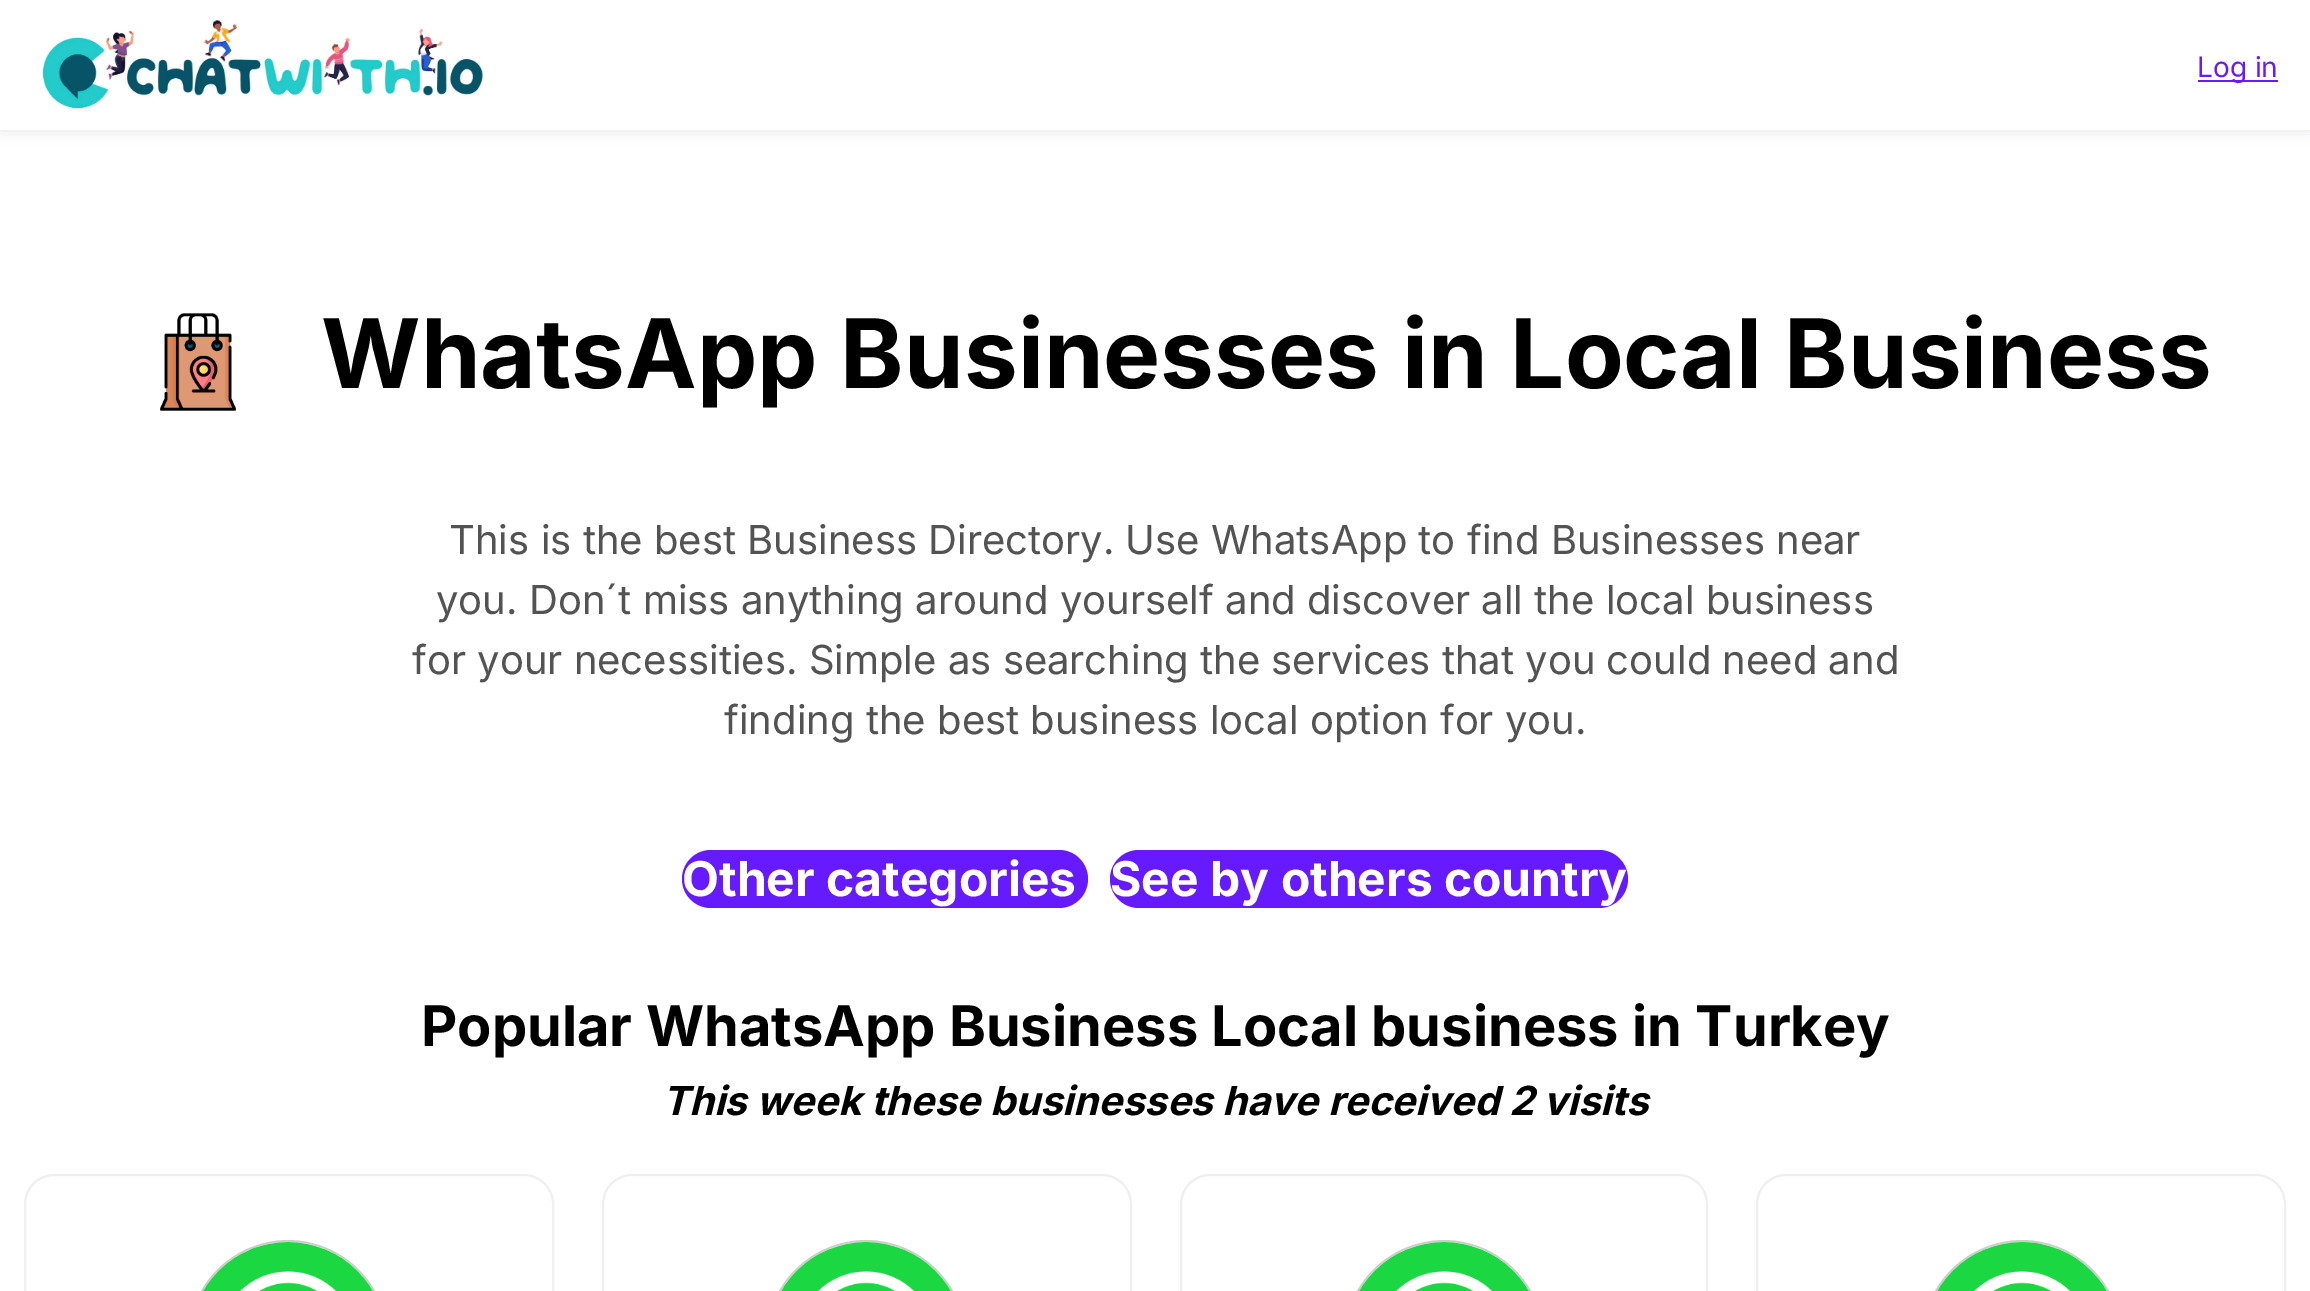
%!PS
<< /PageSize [2310 1291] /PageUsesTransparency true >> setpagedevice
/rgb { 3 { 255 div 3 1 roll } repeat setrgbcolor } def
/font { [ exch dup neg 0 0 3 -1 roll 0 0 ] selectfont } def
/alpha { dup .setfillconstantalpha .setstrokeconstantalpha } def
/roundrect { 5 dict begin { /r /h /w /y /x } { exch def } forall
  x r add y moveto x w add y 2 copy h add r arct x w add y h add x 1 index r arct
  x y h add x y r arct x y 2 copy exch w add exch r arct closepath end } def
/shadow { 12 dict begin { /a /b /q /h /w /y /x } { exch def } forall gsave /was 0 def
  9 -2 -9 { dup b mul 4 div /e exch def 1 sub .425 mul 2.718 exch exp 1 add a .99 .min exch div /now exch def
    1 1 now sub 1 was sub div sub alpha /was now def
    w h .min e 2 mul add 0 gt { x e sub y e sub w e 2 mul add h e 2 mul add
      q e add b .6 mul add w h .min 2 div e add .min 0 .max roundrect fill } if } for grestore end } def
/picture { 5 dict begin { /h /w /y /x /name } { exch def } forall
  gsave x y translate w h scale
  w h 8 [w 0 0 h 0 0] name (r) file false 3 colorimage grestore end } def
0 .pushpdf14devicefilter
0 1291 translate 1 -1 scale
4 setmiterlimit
255 255 255 rgb
0 0 2310 1291 rectfill
gsave
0 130 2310 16 rectclip
225 229 238 rgb
0 0 2310 130 0 8 1 shadow
grestore
(img/1.rgb) 42 19 441 90 picture
102 26 255 rgb
2198 80 80 2 rectfill
(img/2.rgb) 160 313 77 98 picture
682 850 406 58 29 roundrect fill
1110 850 518 58 29 roundrect fill
239 239 242 rgb
2 setlinewidth
25 1175 528 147 29 roundrect stroke
204 204 204 rgb
189 1241 198 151 99 roundrect stroke
(img/3.rgb) 203 1242 170 49 picture
239 239 242 rgb
603 1175 528 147 29 roundrect stroke
204 204 204 rgb
767 1241 198 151 99 roundrect stroke
(img/4.rgb) 781 1242 170 49 picture
239 239 242 rgb
1181 1175 526 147 29 roundrect stroke
204 204 204 rgb
1345 1241 198 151 99 roundrect stroke
(img/5.rgb) 1359 1242 170 49 picture
239 239 242 rgb
1757 1175 528 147 29 roundrect stroke
204 204 204 rgb
1923 1241 198 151 99 roundrect stroke
(img/6.rgb) 1937 1242 170 49 picture
/Inter-Regular 28 font
102 26 255 rgb
2197 77 moveto (Log in) show
/Inter-Bold 96 font
0 0 0 rgb
321 388 moveto (WhatsApp Businesses in Local Business) show
/Inter-Regular 40 font
83 83 83 rgb
[
  [(This is the best Business Directory. Use WhatsApp to find Businesses near) 449 554]
  [(you. Don´t miss anything around yourself and discover all the local business) 436 614]
  [(for your necessities. Simple as searching the services that you could need and) 412 674]
  [(finding the best business local option for you.) 724 734]
] { aload pop moveto show } forall
/Inter-Bold 48 font
255 255 255 rgb
682 896 moveto (Other categories) show
1110 896 moveto (See by others country) show
/Inter-Bold 56 font
0 0 0 rgb
421 1046 moveto (Popular WhatsApp Business Local business in Turkey) show
/Inter-BoldItalic 40 font
662 1115 moveto (This week these businesses have received 2 visits) show
.poppdf14devicefilter showpage
